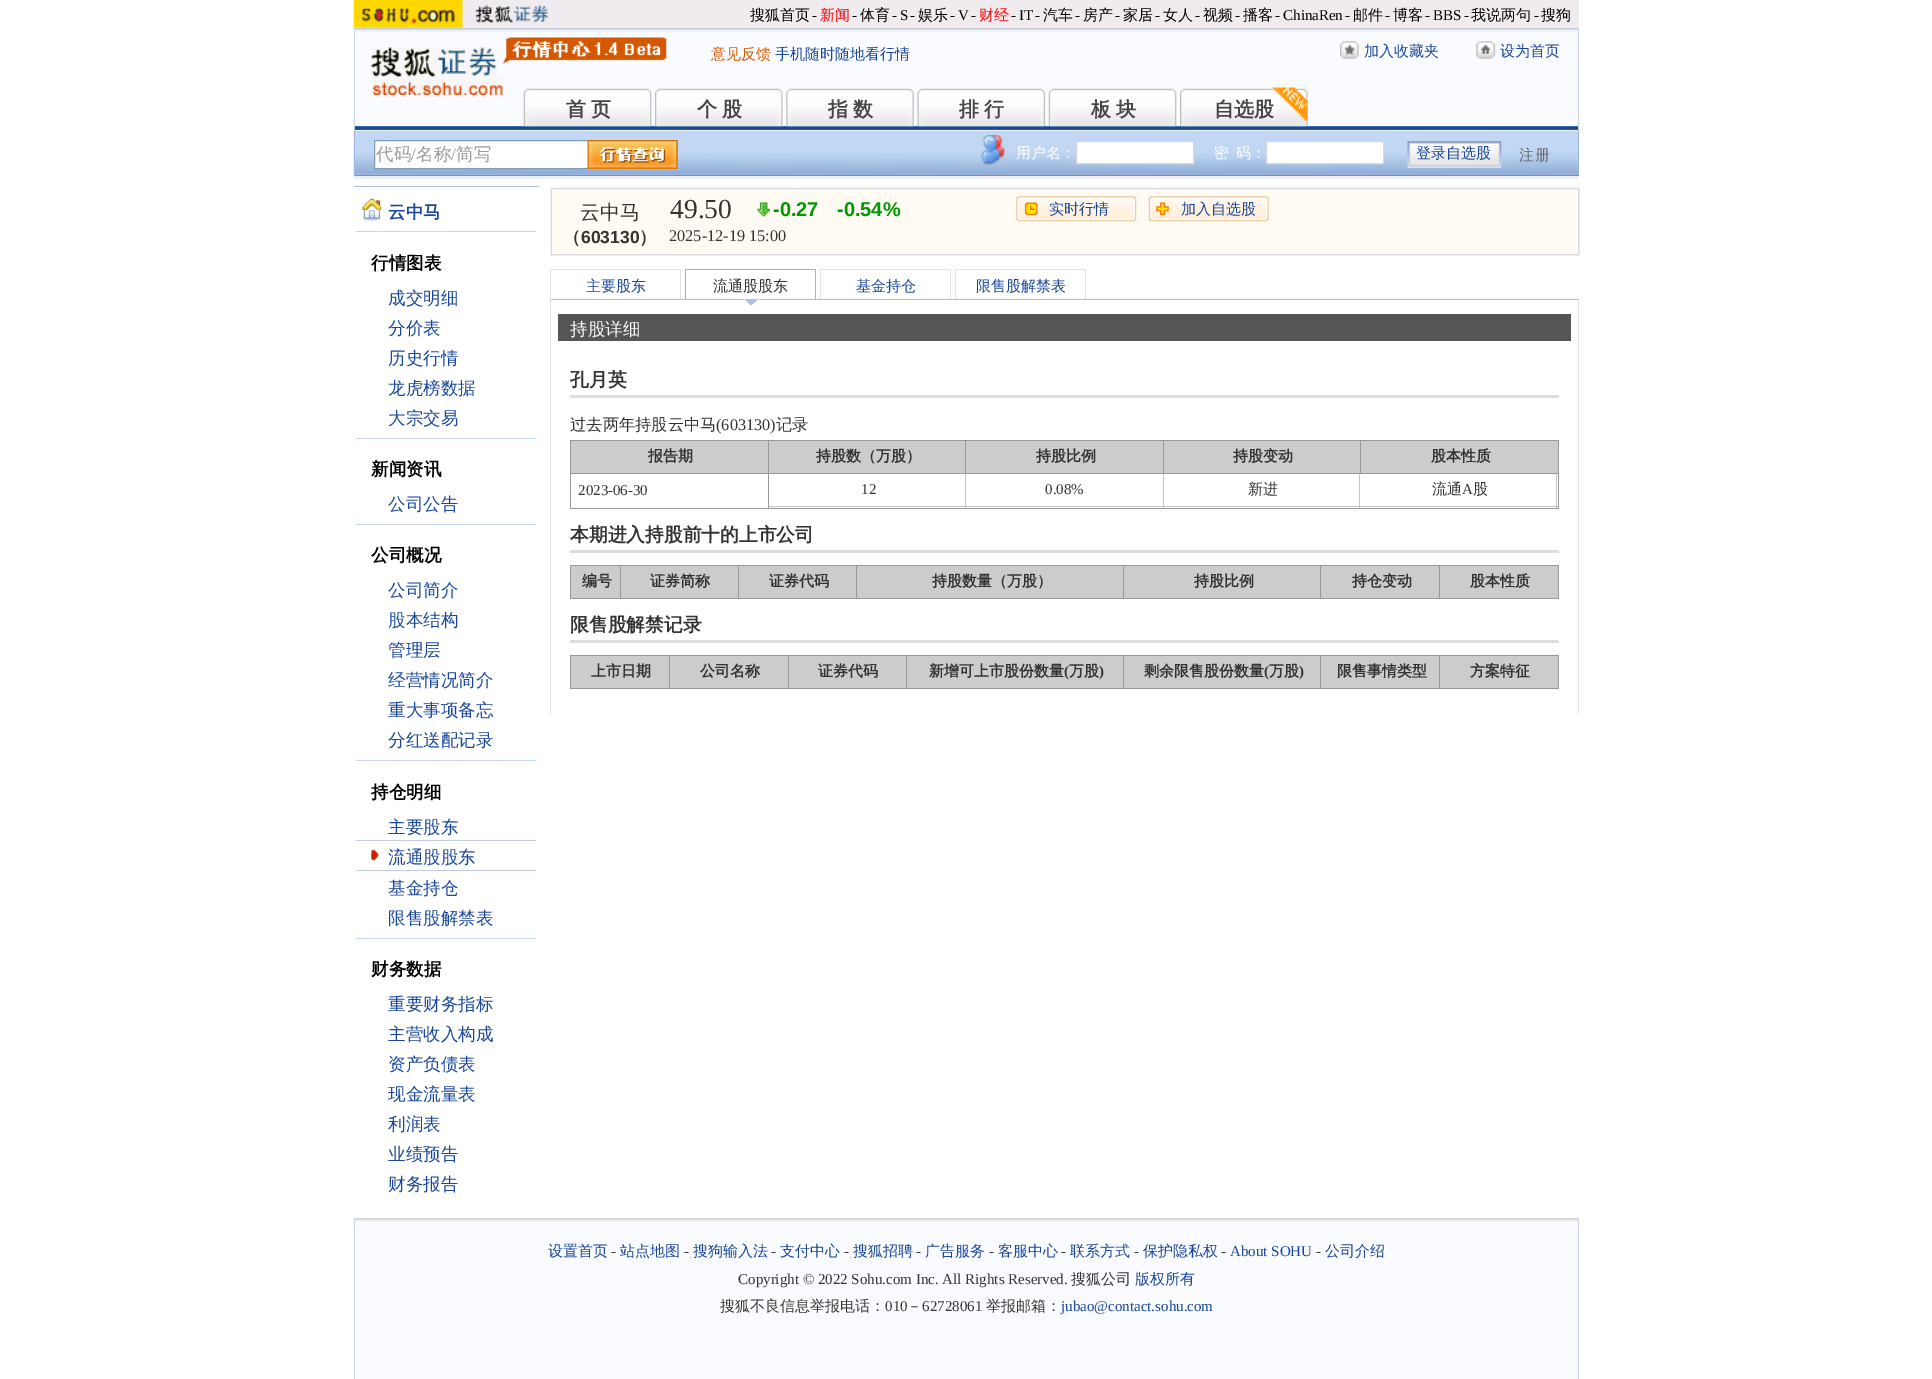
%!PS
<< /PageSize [1932 1379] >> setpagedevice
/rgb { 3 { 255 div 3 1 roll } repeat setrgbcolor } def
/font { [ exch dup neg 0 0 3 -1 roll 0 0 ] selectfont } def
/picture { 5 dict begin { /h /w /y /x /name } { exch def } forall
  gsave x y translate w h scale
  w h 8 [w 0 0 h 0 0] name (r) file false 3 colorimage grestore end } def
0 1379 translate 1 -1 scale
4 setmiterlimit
255 255 255 rgb
0 0 1932 1379 rectfill
239 235 239 rgb
354 0 1225 28 rectfill
(img/1.rgb) 353 0 110 28 picture
(img/2.rgb) 475 5 74 18 picture
250 251 254 rgb
355 32 1223 94 rectfill
(img/3.rgb) 353 28 1225 4 picture
[
  [354 28 1225 1 194 199 212]
  [1578 28 1 102 200 214 229]
  [354 28 1 102 200 214 229]
] { aload pop rgb rectfill } forall
(img/4.rgb) 371 37 296 58 picture
(img/5.rgb) 1340 41 19 18 picture
(img/6.rgb) 1476 41 20 18 picture
50 106 184 rgb
355 126 1223 1 rectfill
(img/7.rgb) 523 88 129 39 picture
(img/8.rgb) 655 88 128 39 picture
(img/9.rgb) 786 88 128 39 picture
(img/10.rgb) 917 88 129 39 picture
(img/11.rgb) 1048 88 129 39 picture
(img/8.rgb) 1180 88 128 39 picture
(img/12.rgb) 1272 87 36 35 picture
[
  [355 127 1223 2 32 72 140]
  [355 129 1223 1 44 82 146]
  [355 131 1223 1 189 212 241]
] { aload pop rgb rectfill } forall
(img/13.rgb) 353 130 1225 46 picture
[
  [354 130 1225 1 238 247 255]
  [1578 130 1 46 155 183 222]
  [354 175 1225 1 117 143 185]
  [354 130 1 46 155 183 222]
] { aload pop rgb rectfill } forall
255 255 255 rgb
374.5 140.5 moveto 588.5 140.5 lineto 588.5 168.5 lineto 374.5 168.5 lineto closepath gsave fill grestore
127 157 185 rgb
stroke
255 153 0 rgb
588 140 90 29 rectfill
(img/14.rgb) 587 140 91 29 picture
(img/15.rgb) 981 134 24 32 picture
255 255 255 rgb
1076.5 141.5 moveto 1193.5 141.5 lineto 1193.5 163.5 lineto 1076.5 163.5 lineto closepath gsave fill grestore
217 217 217 rgb
stroke
255 255 255 rgb
1266.5 141.5 moveto 1383.5 141.5 lineto 1383.5 163.5 lineto 1266.5 163.5 lineto closepath gsave fill grestore
217 217 217 rgb
stroke
218 218 218 rgb
1408 141 93 27 rectfill
(img/16.rgb) 1407 141 95 27 picture
(img/17.rgb) 353 176 1226 4 picture
177 193 220 rgb
354 186 185 1 rectfill
200 215 240 rgb
356 231 180 1 rectfill
(img/18.rgb) 362 198 20 24 picture
[
  [356 438 180 1 200 215 240]
  [356 524 180 1 200 215 240]
  [356 760 180 1 200 215 240]
  [356 938 180 1 200 215 240]
] { aload pop rgb rectfill } forall
(img/19.rgb) 371 849 8 12 picture
192 204 225 rgb
356 840 180 1 rectfill
356 870 180 1 rectfill
246 246 246 rgb
550.5 186.5 1029 69 rectstroke
217 217 217 rgb
551.5 188.5 1027 66 rectstroke
255 251 242 rgb
554 190 1022 63 rectfill
(img/20.rgb) 757 202 13 15 picture
(img/21.rgb) 1016 196 121 26 picture
(img/22.rgb) 1148 196 121 26 picture
[
  [550 269 131 1 227 227 227]
  [680 269 1 30 227 227 227]
  [550 269 1 30 227 227 227]
  [685 269 131 1 151 177 224]
  [815 269 1 30 151 177 224]
  [685 269 1 30 151 177 224]
  [550 299 1029 1 168 193 229]
] { aload pop rgb rectfill } forall
744 299 moveto 759 299 lineto 751 306 lineto closepath fill
255 255 255 rgb
759 299 moveto 759 314 lineto 751 306 lineto closepath 744 314 moveto 744 299 lineto 751 306 lineto closepath fill
[
  [820 269 131 1 227 227 227]
  [950 269 1 30 227 227 227]
  [820 269 1 30 227 227 227]
  [955 269 131 1 227 227 227]
  [1085 269 1 30 227 227 227]
  [955 269 1 30 227 227 227]
  [1578 299 1 415 226 226 226]
  [550 299 1 415 226 226 226]
  [558 314 1013 27 85 85 85]
  [570 395 989 3 221 221 221]
  [571 441 197 32 204 204 204]
  [1360 440 199 1 153 153 153]
  [768 473 791 1 153 153 153]
  [1360 440 1 34 153 153 153]
  [1163 440 198 1 153 153 153]
  [1163 440 1 34 153 153 153]
  [965 440 199 1 153 153 153]
  [965 440 1 34 153 153 153]
  [768 440 198 1 153 153 153]
  [1558 473 1 36 153 153 153]
  [768 508 791 1 153 153 153]
  [768 473 1 36 153 153 153]
  [570 473 199 1 153 153 153]
  [768 440 1 34 153 153 153]
  [570 440 199 1 153 153 153]
  [570 508 199 1 153 153 153]
  [570 473 1 36 153 153 153]
  [570 440 1 34 153 153 153]
  [769 441 196 32 204 204 204]
  [966 441 197 32 204 204 204]
  [1164 441 196 32 204 204 204]
  [1361 441 197 32 204 204 204]
  [1558 440 1 34 153 153 153]
  [1556 474 1 34 197 197 197]
  [1359 506 199 1 197 197 197]
  [1359 474 1 34 197 197 197]
  [1163 506 197 1 197 197 197]
  [1163 474 1 34 197 197 197]
  [965 506 199 1 197 197 197]
  [965 474 1 34 197 197 197]
  [769 506 197 1 197 197 197]
  [570 550 989 3 221 221 221]
  [571 566 49 32 204 204 204]
  [1439 565 120 1 153 153 153]
  [1558 565 1 34 153 153 153]
  [1439 598 120 1 153 153 153]
  [1439 565 1 34 153 153 153]
  [1320 565 120 1 153 153 153]
  [1320 598 120 1 153 153 153]
  [1320 565 1 34 153 153 153]
  [1123 565 198 1 153 153 153]
  [1123 598 198 1 153 153 153]
  [1123 565 1 34 153 153 153]
  [856 565 268 1 153 153 153]
  [739 566 384 32 204 204 204]
  [856 598 268 1 153 153 153]
  [856 565 1 34 153 153 153]
  [738 565 120 1 153 153 153]
  [738 598 120 1 153 153 153]
  [738 565 1 34 153 153 153]
  [620 565 119 1 153 153 153]
  [620 598 119 1 153 153 153]
  [620 565 1 34 153 153 153]
  [570 565 51 1 153 153 153]
  [570 598 51 1 153 153 153]
  [570 565 1 34 153 153 153]
  [621 566 117 32 204 204 204]
  [1124 566 196 32 204 204 204]
  [1321 566 118 32 204 204 204]
  [1440 566 118 32 204 204 204]
  [570 640 989 3 221 221 221]
  [571 656 98 32 204 204 204]
  [1439 655 120 1 153 153 153]
  [1558 655 1 34 153 153 153]
  [1439 688 120 1 153 153 153]
  [1439 655 1 34 153 153 153]
  [1320 655 120 1 153 153 153]
  [1320 688 120 1 153 153 153]
  [1320 655 1 34 153 153 153]
  [1123 655 198 1 153 153 153]
  [1123 688 198 1 153 153 153]
  [1123 655 1 34 153 153 153]
  [906 655 218 1 153 153 153]
  [906 688 218 1 153 153 153]
  [906 655 1 34 153 153 153]
  [788 655 120 1 153 153 153]
  [788 688 120 1 153 153 153]
  [788 655 1 34 153 153 153]
  [669 655 120 1 153 153 153]
  [669 688 120 1 153 153 153]
  [669 655 1 34 153 153 153]
  [570 655 100 1 153 153 153]
  [570 688 100 1 153 153 153]
  [570 655 1 34 153 153 153]
  [670 656 118 32 204 204 204]
  [789 656 117 32 204 204 204]
  [907 656 216 32 204 204 204]
  [1124 656 196 32 204 204 204]
  [1321 656 118 32 204 204 204]
  [1440 656 118 32 204 204 204]
  [355 1222 1223 157 250 251 254]
] { aload pop rgb rectfill } forall
(img/23.rgb) 353 1218 1225 4 picture
[
  [354 1218 1225 1 210 210 210]
  [1578 1218 1 161 200 214 229]
  [354 1218 1 161 200 214 229]
] { aload pop rgb rectfill } forall
/WenQuanYiZenHei-Medium 15 font
0 0 0 rgb
750 20 moveto (搜狐首页) show
/LiberationSerif-Regular 15 font
812 20 moveto (-) show
/WenQuanYiZenHei-Medium 15 font
255 0 0 rgb
820 20 moveto (新闻) show
/LiberationSerif-Regular 15 font
0 0 0 rgb
852 20 moveto (-) show
/WenQuanYiZenHei-Medium 15 font
860 20 moveto (体育) show
/LiberationSerif-Regular 15 font
[
  [(-) 892 20]
  [(S) 900 20]
  [(-) 910 20]
] { aload pop moveto show } forall
/WenQuanYiZenHei-Medium 15 font
918 20 moveto (娱乐) show
/LiberationSerif-Regular 15 font
[
  [(-) 950 20]
  [(V) 958 20]
  [(-) 971 20]
] { aload pop moveto show } forall
/WenQuanYiZenHei-Medium 15 font
255 0 0 rgb
979 20 moveto (财经) show
/LiberationSerif-Regular 15 font
0 0 0 rgb
[
  [(-) 1011 20]
  [(IT) 1019 20]
  [(-) 1035 20]
] { aload pop moveto show } forall
/WenQuanYiZenHei-Medium 15 font
1043 20 moveto (汽车) show
/LiberationSerif-Regular 15 font
1075 20 moveto (-) show
/WenQuanYiZenHei-Medium 15 font
1083 20 moveto (房产) show
/LiberationSerif-Regular 15 font
1115 20 moveto (-) show
/WenQuanYiZenHei-Medium 15 font
1123 20 moveto (家居) show
/LiberationSerif-Regular 15 font
1155 20 moveto (-) show
/WenQuanYiZenHei-Medium 15 font
1163 20 moveto (女人) show
/LiberationSerif-Regular 15 font
1195 20 moveto (-) show
/WenQuanYiZenHei-Medium 15 font
1203 20 moveto (视频) show
/LiberationSerif-Regular 15 font
1235 20 moveto (-) show
/WenQuanYiZenHei-Medium 15 font
1243 20 moveto (播客) show
/LiberationSerif-Regular 15 font
[
  [(-) 1275 20]
  [(ChinaRen) 1283 20]
  [(-) 1345 20]
] { aload pop moveto show } forall
/WenQuanYiZenHei-Medium 15 font
1353 20 moveto (邮件) show
/LiberationSerif-Regular 15 font
1385 20 moveto (-) show
/WenQuanYiZenHei-Medium 15 font
1393 20 moveto (博客) show
/LiberationSerif-Regular 15 font
[
  [(-) 1425 20]
  [(BBS) 1433 20]
  [(-) 1464 20]
] { aload pop moveto show } forall
/WenQuanYiZenHei-Medium 15 font
1471 20 moveto (我说两句) show
/LiberationSerif-Regular 15 font
1534 20 moveto (-) show
/WenQuanYiZenHei-Medium 15 font
1541 20 moveto (搜狗) show
213 88 0 rgb
711 59 moveto (意见反馈) show
24 71 155 rgb
[
  [(手机随时随地看行情) 775 59]
  [(加入收藏夹) 1364 56]
  [(设为首页) 1500 56]
] { aload pop moveto show } forall
/WenQuanYiZenHei-Bold 20 font
70 70 70 rgb
566 116 moveto -1 0 32 (首 页) widthshow
697 116 moveto -1 0 32 (个 股) widthshow
828 116 moveto -1 0 32 (指 数) widthshow
959 116 moveto -1 0 32 (排 行) widthshow
1091 116 moveto -1 0 32 (板 块) widthshow
1214 116 moveto (自选股) show
/WenQuanYiZenHei-Medium 17.5 font
153 153 153 rgb
376 160 moveto (代码) show
/LiberationSerif-Regular 17.5 font
411 160 moveto (/) show
/WenQuanYiZenHei-Medium 17.5 font
416 160 moveto (名称) show
/LiberationSerif-Regular 17.5 font
451 160 moveto (/) show
/WenQuanYiZenHei-Medium 17.5 font
456 160 moveto (简写) show
/WenQuanYiZenHei-Medium 15 font
255 255 255 rgb
[
  [(用户名：) 1016 158]
  [(密) 1214 158]
  [(码：) 1236 158]
] { aload pop moveto show } forall
24 71 155 rgb
1416 158 moveto (登录自选股) show
102 102 102 rgb
1519 160 moveto 1 0 (注册) ashow
/WenQuanYiZenHei-Bold 17.5 font
24 71 155 rgb
388 218 moveto (云中马) show
0 0 0 rgb
371 269 moveto (行情图表) show
/WenQuanYiZenHei-Medium 17.5 font
24 71 155 rgb
[
  [(成交明细) 388 304]
  [(分价表) 388 334]
  [(历史行情) 388 364]
  [(龙虎榜数据) 388 394]
  [(大宗交易) 388 424]
] { aload pop moveto show } forall
/WenQuanYiZenHei-Bold 17.5 font
0 0 0 rgb
371 475 moveto (新闻资讯) show
/WenQuanYiZenHei-Medium 17.5 font
24 71 155 rgb
388 510 moveto (公司公告) show
/WenQuanYiZenHei-Bold 17.5 font
0 0 0 rgb
371 561 moveto (公司概况) show
/WenQuanYiZenHei-Medium 17.5 font
24 71 155 rgb
[
  [(公司简介) 388 596]
  [(股本结构) 388 626]
  [(管理层) 388 656]
  [(经营情况简介) 388 686]
  [(重大事项备忘) 388 716]
  [(分红送配记录) 388 746]
] { aload pop moveto show } forall
/WenQuanYiZenHei-Bold 17.5 font
0 0 0 rgb
371 798 moveto (持仓明细) show
/WenQuanYiZenHei-Medium 17.5 font
24 71 155 rgb
[
  [(主要股东) 388 833]
  [(流通股股东) 388 863]
  [(基金持仓) 388 894]
  [(限售股解禁表) 388 924]
] { aload pop moveto show } forall
/WenQuanYiZenHei-Bold 17.5 font
0 0 0 rgb
371 975 moveto (财务数据) show
/WenQuanYiZenHei-Medium 17.5 font
24 71 155 rgb
[
  [(重要财务指标) 388 1010]
  [(主营收入构成) 388 1040]
  [(资产负债表) 388 1070]
  [(现金流量表) 388 1100]
  [(利润表) 388 1130]
  [(业绩预告) 388 1160]
  [(财务报告) 388 1190]
] { aload pop moveto show } forall
/WenQuanYiZenHei-Medium 20 font
51 51 51 rgb
580 219 moveto (云中马) show
/WenQuanYiZenHei-Bold 17.5 font
563 243 moveto (（) show
/LiberationSans-Bold 17.5 font
581 243 moveto (603130) show
/WenQuanYiZenHei-Bold 17.5 font
639 243 moveto (）) show
/LiberationSerif-Regular 27.5 font
670 218 moveto (49.50) show
/LiberationSans-Bold 20 font
0 153 0 rgb
773 216 moveto (-0.27) show
837 216 moveto (-0.54%) show
/WenQuanYiZenHei-Medium 15 font
24 71 155 rgb
1049 214 moveto (实时行情) show
1181 214 moveto (加入自选股) show
/LiberationSerif-Regular 16.25 font
51 51 51 rgb
669 241 moveto (2025-12-19 15:00) show
/WenQuanYiZenHei-Medium 15 font
24 71 155 rgb
586 291 moveto (主要股东) show
51 51 51 rgb
713 291 moveto (流通股股东) show
24 71 155 rgb
856 291 moveto (基金持仓) show
976 291 moveto (限售股解禁表) show
/WenQuanYiZenHei-Medium 17.5 font
255 255 255 rgb
570 335 moveto (持股详细) show
/WenQuanYiZenHei-Bold 18.75 font
51 51 51 rgb
570 386 moveto (孔月英) show
/WenQuanYiZenHei-Medium 16.25 font
570 430 moveto (过去两年持股云中马) show
/LiberationSerif-Regular 16.25 font
716 430 moveto (\(603130\)) show
/WenQuanYiZenHei-Medium 16.25 font
776 430 moveto (记录) show
/WenQuanYiZenHei-Bold 15 font
[
  [(报告期) 648 461]
  [(持股数（万股）) 816 461]
  [(持股比例) 1036 461]
  [(持股变动) 1233 461]
  [(股本性质) 1431 461]
] { aload pop moveto show } forall
/LiberationSerif-Regular 15 font
[
  [(2023-06-30) 578 495]
  [(12) 861 494]
  [(0.08%) 1045 494]
] { aload pop moveto show } forall
/WenQuanYiZenHei-Medium 15 font
1248 494 moveto (新进) show
1432 494 moveto (流通) show
/LiberationSerif-Regular 15 font
1462 494 moveto (A) show
/WenQuanYiZenHei-Medium 15 font
1473 494 moveto (股) show
/WenQuanYiZenHei-Bold 18.75 font
570 541 moveto (本期进入持股前十的上市公司) show
/WenQuanYiZenHei-Bold 15 font
[
  [(编号) 582 586]
  [(证券简称) 650 586]
  [(证券代码) 769 586]
  [(持股数量（万股）) 932 586]
  [(持股比例) 1194 586]
  [(持仓变动) 1352 586]
  [(股本性质) 1470 586]
] { aload pop moveto show } forall
/WenQuanYiZenHei-Bold 18.75 font
570 631 moveto (限售股解禁记录) show
/WenQuanYiZenHei-Bold 15 font
[
  [(上市日期) 591 676]
  [(公司名称) 700 676]
  [(证券代码) 818 676]
  [(新增可上市股份数量) 929 676]
] { aload pop moveto show } forall
/LiberationSerif-Bold 15 font
1064 676 moveto (\() show
/WenQuanYiZenHei-Bold 15 font
1069 676 moveto (万股) show
/LiberationSerif-Bold 15 font
1099 676 moveto (\)) show
/WenQuanYiZenHei-Bold 15 font
1144 676 moveto (剩余限售股份数量) show
/LiberationSerif-Bold 15 font
1264 676 moveto (\() show
/WenQuanYiZenHei-Bold 15 font
1269 676 moveto (万股) show
/LiberationSerif-Bold 15 font
1299 676 moveto (\)) show
/WenQuanYiZenHei-Bold 15 font
1337 676 moveto (限售事情类型) show
1470 676 moveto (方案特征) show
/WenQuanYiZenHei-Medium 15 font
24 71 155 rgb
548 1256 moveto (设置首页) show
/LiberationSerif-Regular 15 font
51 51 51 rgb
611 1256 moveto (-) show
/WenQuanYiZenHei-Medium 15 font
24 71 155 rgb
620 1256 moveto (站点地图) show
/LiberationSerif-Regular 15 font
51 51 51 rgb
684 1256 moveto (-) show
/WenQuanYiZenHei-Medium 15 font
24 71 155 rgb
693 1256 moveto (搜狗输入法) show
/LiberationSerif-Regular 15 font
51 51 51 rgb
771 1256 moveto (-) show
/WenQuanYiZenHei-Medium 15 font
24 71 155 rgb
780 1256 moveto (支付中心) show
/LiberationSerif-Regular 15 font
51 51 51 rgb
844 1256 moveto (-) show
/WenQuanYiZenHei-Medium 15 font
24 71 155 rgb
853 1256 moveto (搜狐招聘) show
/LiberationSerif-Regular 15 font
51 51 51 rgb
916 1256 moveto (-) show
/WenQuanYiZenHei-Medium 15 font
24 71 155 rgb
925 1256 moveto (广告服务) show
/LiberationSerif-Regular 15 font
51 51 51 rgb
989 1256 moveto (-) show
/WenQuanYiZenHei-Medium 15 font
24 71 155 rgb
998 1256 moveto (客服中心) show
/LiberationSerif-Regular 15 font
51 51 51 rgb
1061 1256 moveto (-) show
/WenQuanYiZenHei-Medium 15 font
24 71 155 rgb
1070 1256 moveto (联系方式) show
/LiberationSerif-Regular 15 font
51 51 51 rgb
1134 1256 moveto (-) show
/WenQuanYiZenHei-Medium 15 font
24 71 155 rgb
1143 1256 moveto (保护隐私权) show
/LiberationSerif-Regular 15 font
51 51 51 rgb
1221 1256 moveto (-) show
24 71 155 rgb
1230 1256 moveto (About SOHU) show
51 51 51 rgb
1316 1256 moveto (-) show
/WenQuanYiZenHei-Medium 15 font
24 71 155 rgb
1325 1256 moveto (公司介绍) show
/LiberationSerif-Regular 15 font
51 51 51 rgb
738 1284 moveto (Copyright © 2022 Sohu.com Inc. All Rights Reserved.) show
/WenQuanYiZenHei-Medium 15 font
1071 1284 moveto (搜狐公司) show
24 71 155 rgb
1135 1284 moveto (版权所有) show
51 51 51 rgb
720 1311 moveto (搜狐不良信息举报电话：) show
/LiberationSerif-Regular 15 font
885 1311 moveto (010) show
/WenQuanYiZenHei-Medium 15 font
907 1311 moveto (－) show
/LiberationSerif-Regular 15 font
922 1311 moveto (62728061) show
/WenQuanYiZenHei-Medium 15 font
986 1311 moveto (举报邮箱：) show
/LiberationSerif-Regular 15 font
24 71 155 rgb
1061 1311 moveto (jubao@contact.sohu.com) show
showpage
